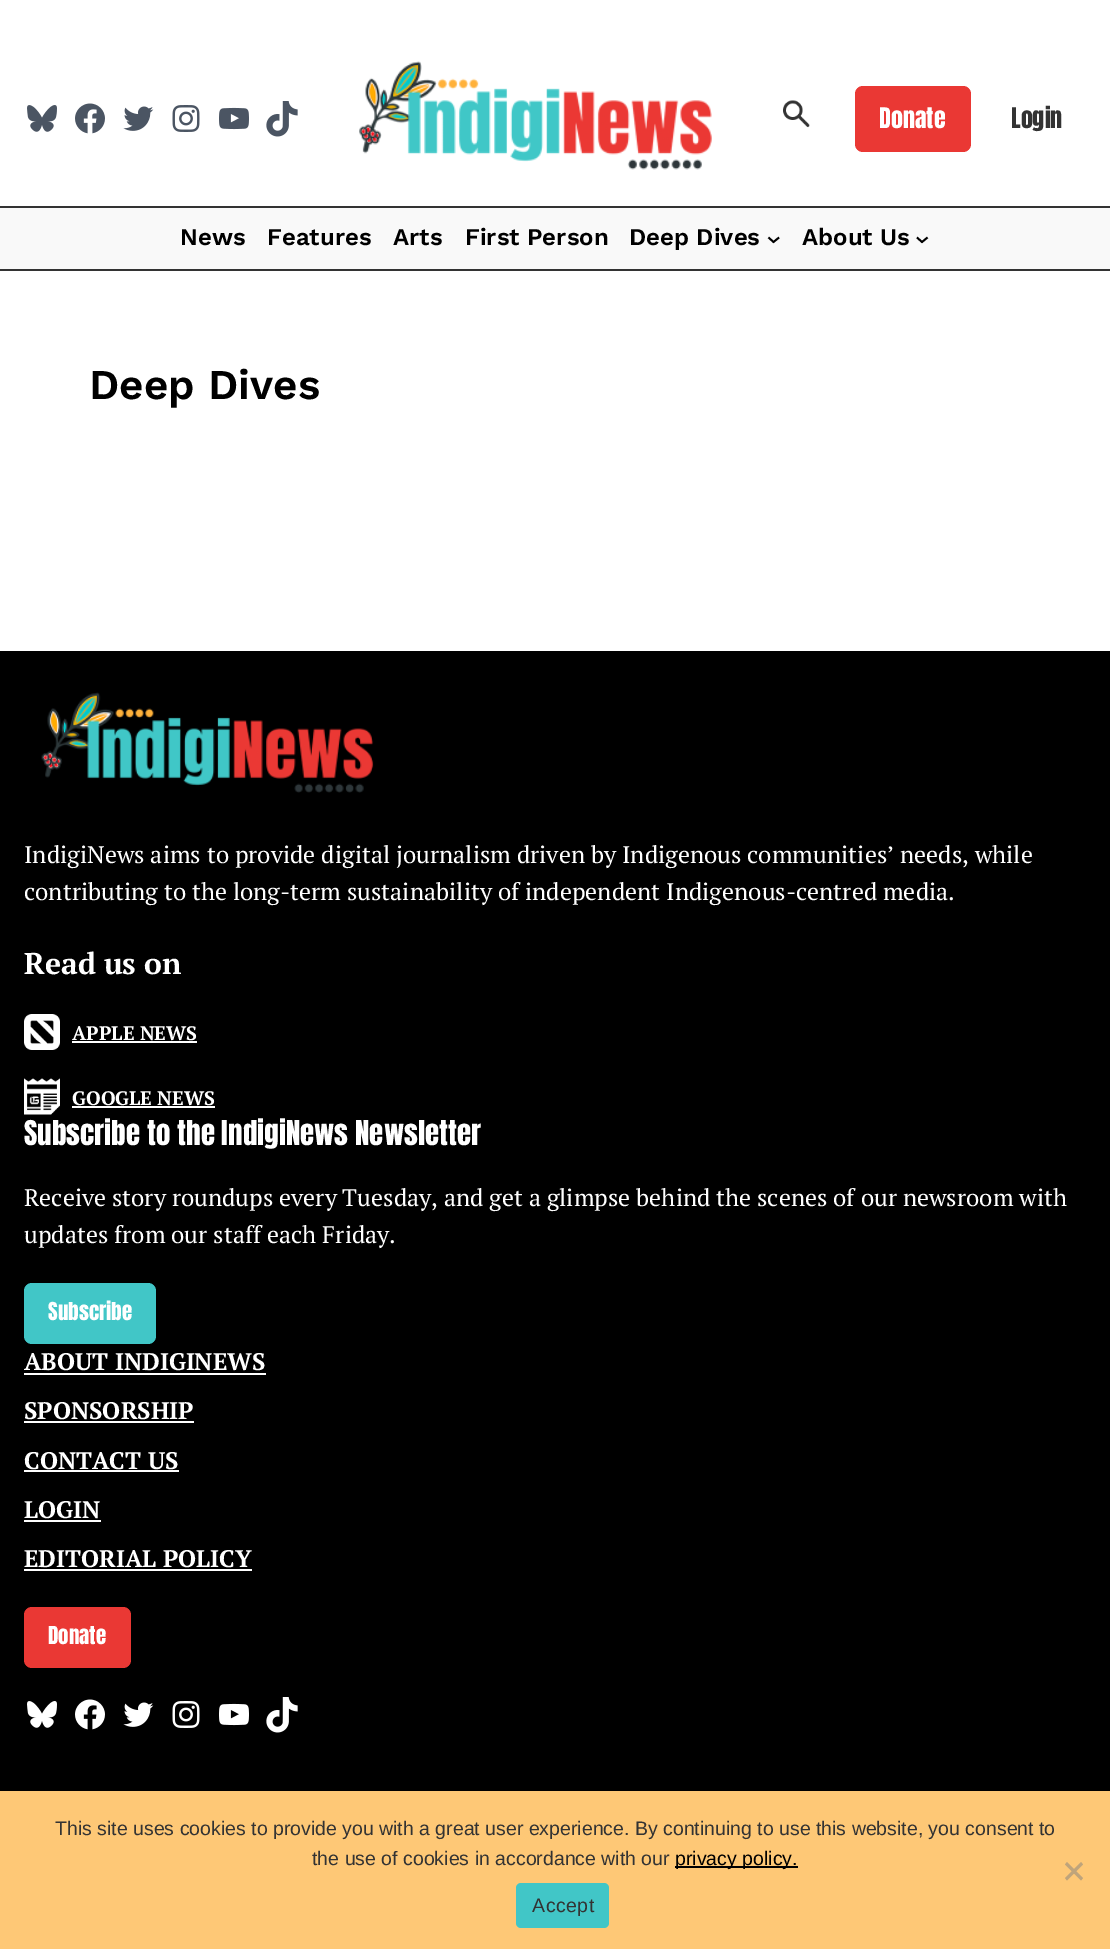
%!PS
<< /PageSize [1110 1949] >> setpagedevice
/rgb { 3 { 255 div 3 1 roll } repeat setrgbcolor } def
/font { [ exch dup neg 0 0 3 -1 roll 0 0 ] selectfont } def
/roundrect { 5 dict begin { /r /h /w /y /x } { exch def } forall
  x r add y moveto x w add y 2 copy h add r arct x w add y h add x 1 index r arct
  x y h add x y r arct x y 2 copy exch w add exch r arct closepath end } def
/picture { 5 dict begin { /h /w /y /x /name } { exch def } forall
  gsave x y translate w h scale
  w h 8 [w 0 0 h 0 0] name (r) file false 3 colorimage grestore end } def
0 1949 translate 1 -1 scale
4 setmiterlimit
255 255 255 rgb
0 0 1110 1949 rectfill
(img/1.rgb) 27 105 30 27 picture
(img/2.rgb) 75 103 30 31 picture
(img/3.rgb) 123 106 31 25 picture
(img/4.rgb) 172 105 28 27 picture
(img/5.rgb) 219 107 30 23 picture
(img/6.rgb) 266 101 32 36 picture
(img/7.rgb) 359 61 353 109 picture
(img/8.rgb) 783 100 27 28 picture
234 56 52 rgb
855 86 116 66 8 roundrect fill
[
  [0 208 1110 61 249 249 249]
  [0 206 1110 2 51 51 51]
  [0 269 1110 2 51 51 51]
] { aload pop rgb rectfill } forall
0 0 0 rgb
1.8 setlinewidth
768.5 237.5 moveto 773.5 242 lineto 779 237.5 lineto stroke
917 237.5 moveto 922 242 lineto 927.5 237.5 lineto stroke
0 651 1110 1140 rectfill
(img/9.rgb) 41 692 333 101 picture
(img/10.rgb) 24 1014 36 36 picture
255 255 255 rgb
72 1041 125 2 rectfill
(img/11.rgb) 24 1078 36 37 picture
72 1106 143 2 rectfill
65 198 199 rgb
24 1283 132 61 8 roundrect fill
[
  [24 1373 242 2 255 255 255]
  [24 1421 170 2 255 255 255]
  [24 1470 155 2 255 255 255]
  [24 1520 77 2 255 255 255]
  [24 1569 228 2 255 255 255]
] { aload pop rgb rectfill } forall
234 56 52 rgb
24 1607 107 61 8 roundrect fill
(img/12.rgb) 27 1701 30 27 picture
(img/13.rgb) 75 1699 30 31 picture
(img/14.rgb) 123 1702 31 25 picture
(img/15.rgb) 172 1701 28 27 picture
(img/16.rgb) 219 1703 30 23 picture
(img/17.rgb) 266 1697 32 36 picture
254 200 118 rgb
0 1791 1110 158 rectfill
0 0 0 rgb
675 1866 123 2 rectfill
191 164 123 rgb
1081 1862 moveto 1083 1864.5 lineto 1067 1880.5 lineto 1065 1878 lineto closepath fill
1065 1864.5 moveto 1067 1862 lineto 1083 1878 lineto 1081 1880.5 lineto closepath fill
65 198 199 rgb
516 1883 93 45 5 roundrect fill
/Anton-Regular 24 font
255 255 255 rgb
879 128 moveto (Donate) show
51 51 51 rgb
1011 128 moveto (Login) show
/WorkSans-SemiBold 24 font
0 0 0 rgb
[
  [(News) 180 245]
  [(Features) 267 245]
  [(Arts) 393 245]
  [(First Person) 465 245]
  [(Deep Dives) 629 245]
  [(About Us) 802 245]
] { aload pop moveto show } forall
/WorkSans-SemiBold 42.25 font
89 399 moveto (Deep Dives) show
/PTSerif-Regular 24 font
255 255 255 rgb
24 863 moveto (IndigiNews aims to provide digital journalism driven by Indigenous communities’ needs, while) show
24 900 moveto (contributing to the long-term sustainability of independent Indigenous-centred media.) show
/PTSerif-Bold 30 font
24 974 moveto (Read us on) show
/PTSerif-Bold 19.5 font
72 1040 moveto (APPLE NEWS) show
72 1105 moveto (GOOGLE NEWS) show
/Anton-Regular 29 font
24 1145 moveto (Subscribe to the IndigiNews Newsletter) show
/PTSerif-Regular 24 font
24 1206 moveto (Receive story roundups every Tuesday, and get a glimpse behind the scenes of our newsroom with) show
24 1243 moveto (updates from our staff each Friday.) show
/Anton-Regular 21 font
48 1320 moveto (Subscribe) show
/PTSerif-Bold 24 font
[
  [(ABOUT INDIGINEWS) 24 1370]
  [(SPONSORSHIP) 24 1419]
  [(CONTACT US) 24 1469]
  [(LOGIN) 24 1518]
  [(EDITORIAL POLICY) 24 1567]
] { aload pop moveto show } forall
/Anton-Regular 21 font
48 1644 moveto (Donate) show
/LiberationSans-Regular 19.5 font
51 51 51 rgb
55 1835 moveto (This site uses cookies to provide you with a great user experience. By continuing to use this website, you consent to) show
312 1865 moveto (the use of cookies in accordance with our) show
0 0 0 rgb
675 1865 moveto (privacy policy.) show
51 51 51 rgb
532 1912 moveto 0.5 0 (Accept) ashow
showpage
